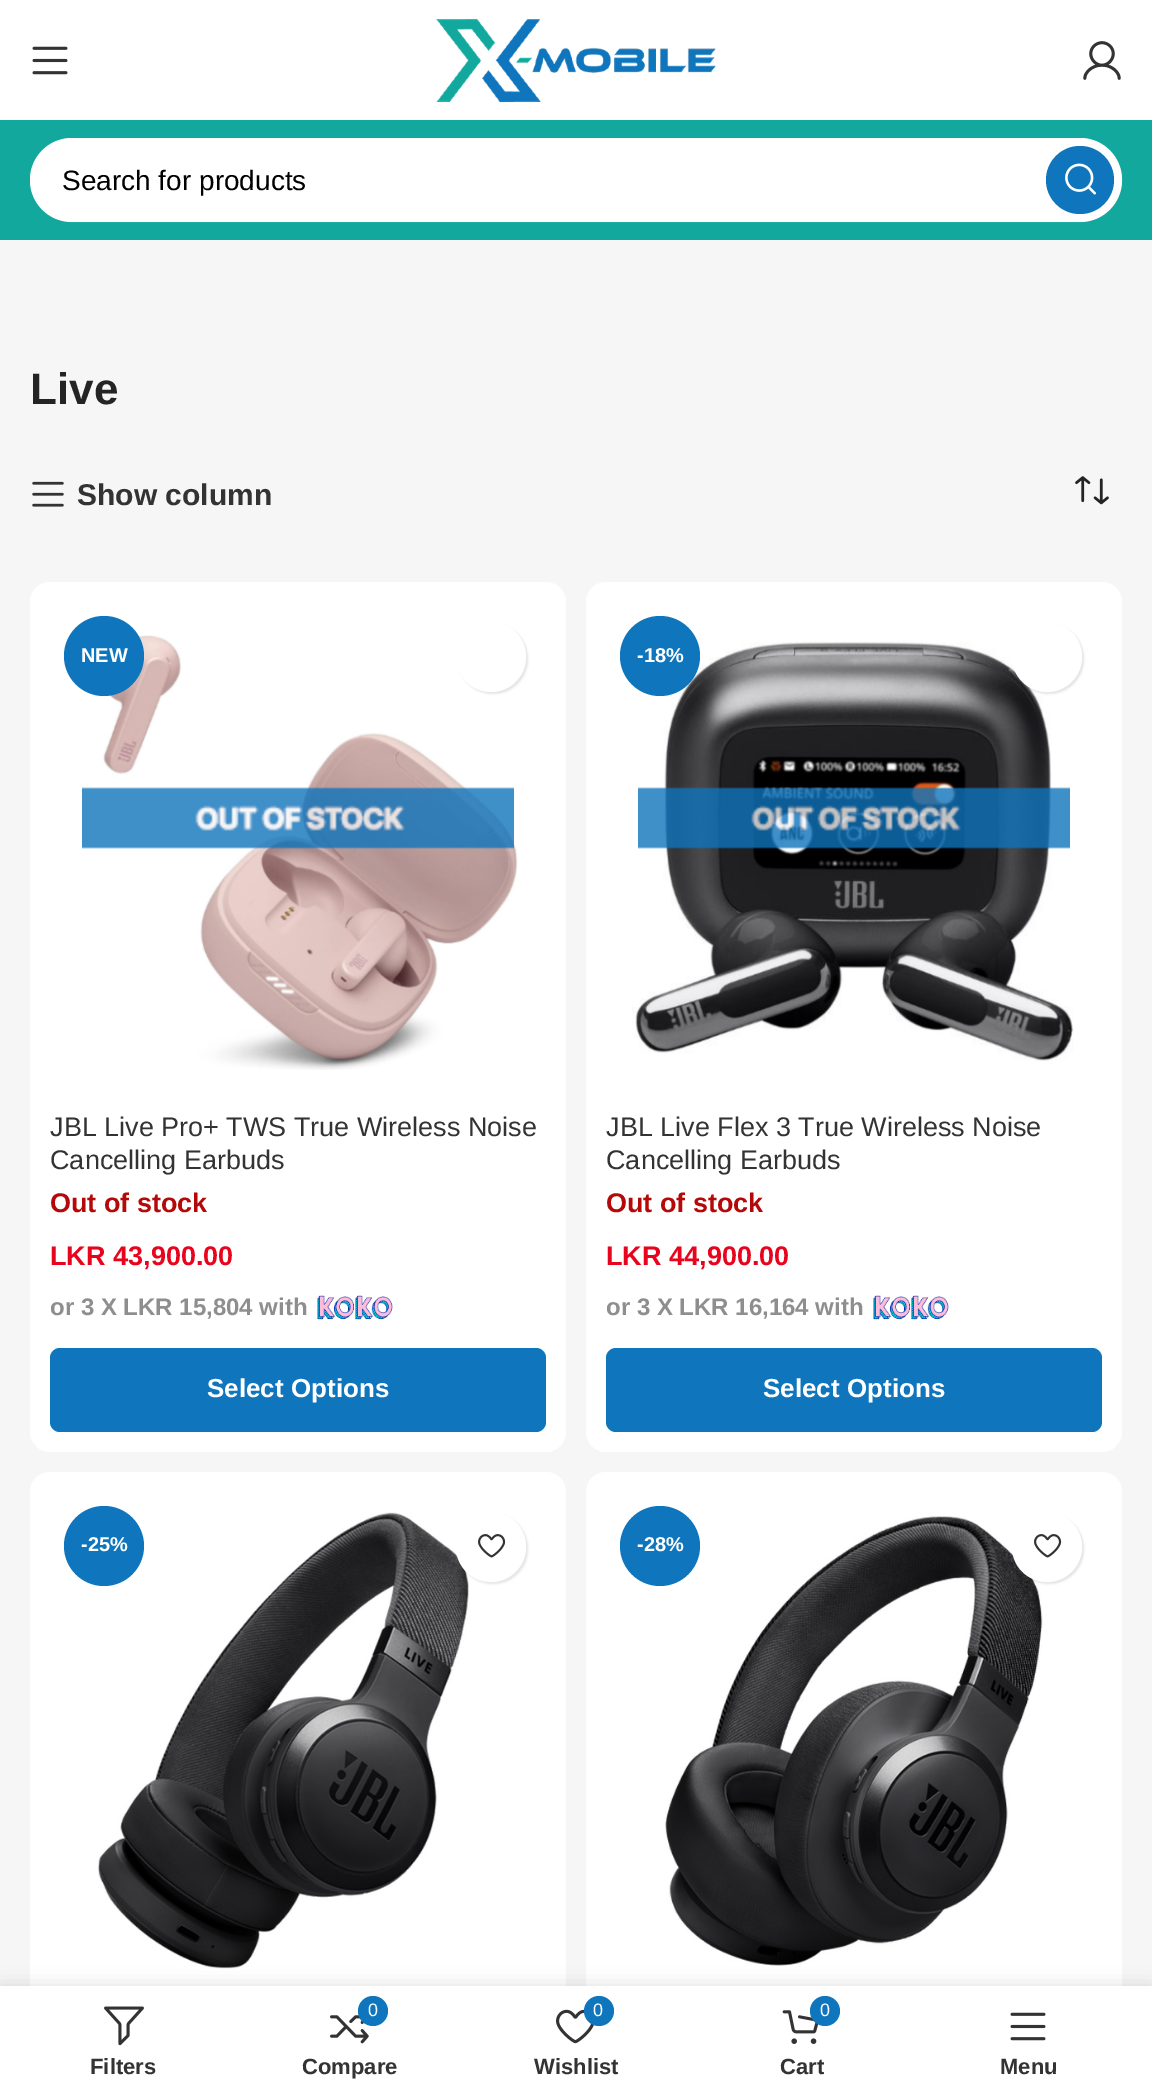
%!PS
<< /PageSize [1152 2095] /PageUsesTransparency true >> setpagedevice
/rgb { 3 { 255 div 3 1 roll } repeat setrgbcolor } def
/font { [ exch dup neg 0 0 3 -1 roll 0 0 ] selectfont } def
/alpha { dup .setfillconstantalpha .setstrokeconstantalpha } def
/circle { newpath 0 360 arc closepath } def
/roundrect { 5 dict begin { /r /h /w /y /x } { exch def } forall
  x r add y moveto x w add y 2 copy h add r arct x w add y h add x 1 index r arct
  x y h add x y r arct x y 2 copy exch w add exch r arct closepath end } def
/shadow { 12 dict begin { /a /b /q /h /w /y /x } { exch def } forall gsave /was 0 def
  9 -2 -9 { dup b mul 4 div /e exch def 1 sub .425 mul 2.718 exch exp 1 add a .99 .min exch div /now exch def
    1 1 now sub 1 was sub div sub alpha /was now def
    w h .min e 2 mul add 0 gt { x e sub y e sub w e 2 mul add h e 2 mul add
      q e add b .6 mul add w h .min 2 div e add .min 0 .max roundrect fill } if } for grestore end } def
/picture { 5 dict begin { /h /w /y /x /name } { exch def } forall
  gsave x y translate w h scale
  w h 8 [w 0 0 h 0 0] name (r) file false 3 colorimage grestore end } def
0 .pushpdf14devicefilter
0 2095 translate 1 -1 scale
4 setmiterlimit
255 255 255 rgb
0 0 1152 2095 rectfill
(img/1.rgb) 32 46 36 29 picture
(img/2.rgb) 436 18 280 85 picture
(img/3.rgb) 1083 41 38 39 picture
19 168 158 rgb
0 120 1152 120 rectfill
255 255 255 rgb
30 138 1092 84 42 roundrect fill
0.2 alpha
2 setlinewidth
31 139 1090 82 41 roundrect stroke
1 alpha
15 117 188 rgb
1080 180 34 circle fill
(img/4.rgb) 1065 163 31 32 picture
246 246 246 rgb
0 240 1152 1746 rectfill
(img/5.rgb) 32 481 32 26 picture
(img/6.rgb) 1075 476 34 29 picture
255 255 255 rgb
30 582 536 870 20 roundrect fill
(img/7.rgb) 78 635 440 435 picture
15 117 188 rgb
104 656 40 circle fill
(img/8.rgb) 82 787 432 62 picture
0 0 0 rgb
458 624 70 70 35 1 0.1 shadow
255 255 255 rgb
491 657 35 circle fill
(img/9.rgb) 317 1295 76 25 picture
15 117 188 rgb
50 1348 496 84 10 roundrect fill
255 255 255 rgb
586 582 536 870 20 roundrect fill
(img/10.rgb) 632 641 442 420 picture
15 117 188 rgb
660 656 40 circle fill
(img/11.rgb) 638 787 432 62 picture
0 0 0 rgb
1014 624 70 70 35 1 0.1 shadow
255 255 255 rgb
1047 657 35 circle fill
(img/12.rgb) 873 1295 76 25 picture
15 117 188 rgb
606 1348 496 84 10 roundrect fill
255 255 255 rgb
30 1472 536 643 20 roundrect fill
(img/13.rgb) 98 1512 371 457 picture
15 117 188 rgb
104 1546 40 circle fill
0 0 0 rgb
458 1514 70 70 35 1 0.1 shadow
255 255 255 rgb
491 1547 35 circle fill
(img/14.rgb) 478 1534 28 24 picture
586 1472 536 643 20 roundrect fill
(img/15.rgb) 665 1516 378 450 picture
15 117 188 rgb
660 1546 40 circle fill
0 0 0 rgb
1014 1514 70 70 35 1 0.1 shadow
255 255 255 rgb
1047 1547 35 circle fill
(img/14.rgb) 1034 1534 28 24 picture
0 0 0 rgb
0 1986 1152 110 0 9 0.12 shadow
255 255 255 rgb
0 1986 1152 109 rectfill
(img/16.rgb) 104 2006 40 40 picture
(img/17.rgb) 330 2015 39 29 picture
15 117 188 rgb
373 2011 15 circle fill
(img/18.rgb) 556 2009 38 35 picture
599 2011 15 circle fill
(img/19.rgb) 782 2010 37 34 picture
825 2011 15 circle fill
(img/1.rgb) 1010 2012 36 29 picture
/LiberationSans-Regular 28 font
0 0 0 rgb
62 190 moveto (Search for products) show
/LiberationSans-Bold 44 font
36 36 36 rgb
30 404 moveto (Live) show
/LiberationSans-Bold 30 font
51 51 51 rgb
77 505 moveto (Show column) show
/LiberationSans-Bold 20 font
255 255 255 rgb
81 662 moveto (NEW) show
/LiberationSans-Regular 27 font
51 51 51 rgb
50 1136 moveto (JBL Live Pro+ TWS True Wireless Noise) show
50 1169 moveto (Cancelling Earbuds) show
/LiberationSans-Bold 27 font
181 8 8 rgb
50 1212 moveto (Out of stock) show
233 4 30 rgb
50 1265 moveto (LKR 43,900.00) show
/LiberationSans-Bold 24 font
142 142 142 rgb
50 1315 moveto (or 3 X LKR 15,804 with) show
/LiberationSans-Bold 26 font
255 255 255 rgb
207 1397 moveto (Select Options) show
/LiberationSans-Bold 20 font
637 662 moveto (-18%) show
/LiberationSans-Regular 27 font
51 51 51 rgb
606 1136 moveto (JBL Live Flex 3 True Wireless Noise) show
606 1169 moveto (Cancelling Earbuds) show
/LiberationSans-Bold 27 font
181 8 8 rgb
606 1212 moveto (Out of stock) show
233 4 30 rgb
606 1265 moveto (LKR 44,900.00) show
/LiberationSans-Bold 24 font
142 142 142 rgb
606 1315 moveto (or 3 X LKR 16,164 with) show
/LiberationSans-Bold 26 font
255 255 255 rgb
763 1397 moveto (Select Options) show
/LiberationSans-Bold 20 font
81 1551 moveto (-25%) show
637 1551 moveto (-28%) show
/LiberationSans-Bold 22 font
51 51 51 rgb
90 2074 moveto (Filters) show
/LiberationSans-Regular 18 font
255 255 255 rgb
368 2016 moveto (0) show
/LiberationSans-Bold 22 font
51 51 51 rgb
302 2074 moveto (Compare) show
/LiberationSans-Regular 18 font
255 255 255 rgb
593 2016 moveto (0) show
/LiberationSans-Bold 22 font
51 51 51 rgb
534 2074 moveto (Wishlist) show
/LiberationSans-Regular 18 font
255 255 255 rgb
820 2016 moveto (0) show
/LiberationSans-Bold 22 font
51 51 51 rgb
780 2074 moveto (Cart) show
1000 2074 moveto (Menu) show
.poppdf14devicefilter showpage
